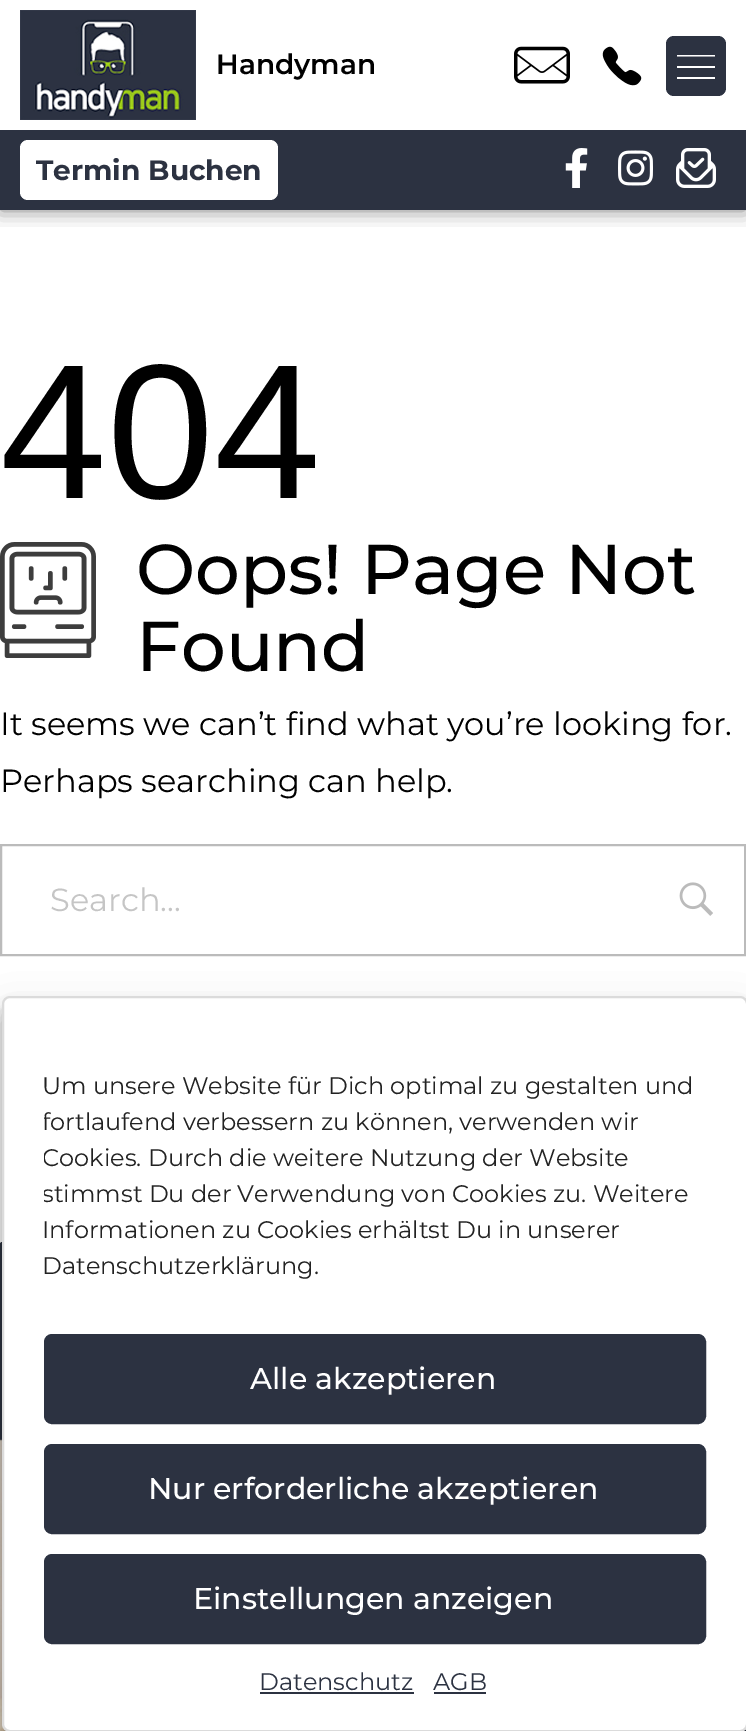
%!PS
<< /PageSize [746 1731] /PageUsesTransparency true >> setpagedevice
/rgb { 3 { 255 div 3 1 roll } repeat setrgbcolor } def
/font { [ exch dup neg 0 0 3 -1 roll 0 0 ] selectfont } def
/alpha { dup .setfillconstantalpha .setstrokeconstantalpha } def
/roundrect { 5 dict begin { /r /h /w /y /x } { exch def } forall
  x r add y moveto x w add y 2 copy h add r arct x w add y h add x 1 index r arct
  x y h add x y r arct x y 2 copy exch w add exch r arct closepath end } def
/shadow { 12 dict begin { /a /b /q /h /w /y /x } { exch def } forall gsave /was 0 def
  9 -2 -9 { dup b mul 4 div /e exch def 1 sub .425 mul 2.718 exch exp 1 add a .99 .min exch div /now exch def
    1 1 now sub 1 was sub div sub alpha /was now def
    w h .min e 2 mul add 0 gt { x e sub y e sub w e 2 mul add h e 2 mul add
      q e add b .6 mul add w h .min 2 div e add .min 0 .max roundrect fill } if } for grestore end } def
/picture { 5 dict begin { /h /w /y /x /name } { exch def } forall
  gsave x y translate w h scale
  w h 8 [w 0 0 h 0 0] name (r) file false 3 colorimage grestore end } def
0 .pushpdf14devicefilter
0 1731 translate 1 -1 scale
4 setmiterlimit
255 255 255 rgb
0 0 746 1731 rectfill
gsave
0 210 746 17 rectclip
0 0 0 rgb
0 0 746 210 0 10 0.5 shadow
grestore
(img/1.rgb) 20 10 176 110 picture
(img/2.rgb) 514 46 56 38 picture
(img/3.rgb) 602 46 40 40 picture
44 50 65 rgb
666 36 60 60 8 roundrect fill
255 255 255 rgb
677 55 moveto 677 56.5 lineto 715 56.5 lineto 715 55 lineto closepath 677 66 moveto 677 68 lineto 715 68 lineto 715 66 lineto closepath 677 77 moveto 677 79 lineto 715 79 lineto 715 77 lineto closepath fill
44 50 65 rgb
0 130 746 80 rectfill
255 255 255 rgb
20 140 258 60 8 roundrect fill
(img/4.rgb) 565 148 23 40 picture
(img/5.rgb) 618 150 35 36 picture
(img/6.rgb) 676 148 40 40 picture
(img/7.rgb) 0 542 96 116 picture
187 187 187 rgb
2 setlinewidth
1 845 744 110 rectstroke
(img/8.rgb) 679 882 34 34 picture
44 50 65 rgb
2 1242 moveto 746 1242 lineto 746 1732 lineto 0 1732 lineto 0 1244 lineto 0 1243 1 1242 2 1242 curveto closepath fill
(img/9.rgb) 0 1439 7 292 picture
0 0 0 rgb
2 1008 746 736 8 6 0.23 shadow
2 1016 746 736 8 20 0.19 shadow
255 255 255 rgb
3 997 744 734 7 roundrect gsave fill grestore
219 219 219 rgb
stroke
44 50 65 rgb
45 1335 660 88 7 roundrect gsave fill grestore
stroke
45 1445 660 88 7 roundrect gsave fill grestore
stroke
45 1555 660 88 7 roundrect gsave fill grestore
stroke
260 1692 154 2 rectfill
434 1692 52 2 rectfill
/Montserrat-SemiBold 28 font
0 0 0 rgb
216 74 moveto (Handyman) show
/Montserrat-Bold 28 font
44 50 65 rgb
36 180 moveto (Termin Buchen) show
/LiberationSans-Regular 192 font
0 0 0 rgb
0 498 moveto (404) show
/Montserrat-Medium 70.5 font
136 594 moveto (Oops! Page Not) show
136 671 moveto (Found) show
/Montserrat-Regular 32 font
0 735 moveto (It seems we can’t find what you’re looking for.) show
0 792 moveto (Perhaps searching can help.) show
197 197 197 rgb
50 911 moveto (Search...) show
/Montserrat-Regular 24 font
34 34 34 rgb
42 1094 moveto (Um unsere Website für Dich optimal zu gestalten und) show
gsave
44 1068 662 226 rectclip
[
  [(fortlaufend verbessern zu können, verwenden wir) 42 1130]
  [(Cookies. Durch die weitere Nutzung der Website) 42 1166]
  [(stimmst Du der Verwendung von Cookies zu. Weitere) 42 1202]
] { aload pop moveto show } forall
grestore
42 1238 moveto (Informationen zu Cookies erhältst Du in unserer) show
42 1274 moveto (Datenschutzerklärung.) show
/Montserrat-Medium 30 font
255 255 255 rgb
[
  [(Alle akzeptieren) 250 1389]
  [(Nur erforderliche akzeptieren) 148 1499]
  [(Einstellungen anzeigen) 193 1609]
] { aload pop moveto show } forall
/Montserrat-Regular 24 font
44 50 65 rgb
259 1690 moveto (Datenschutz) show
433 1690 moveto (AGB) show
.poppdf14devicefilter showpage
